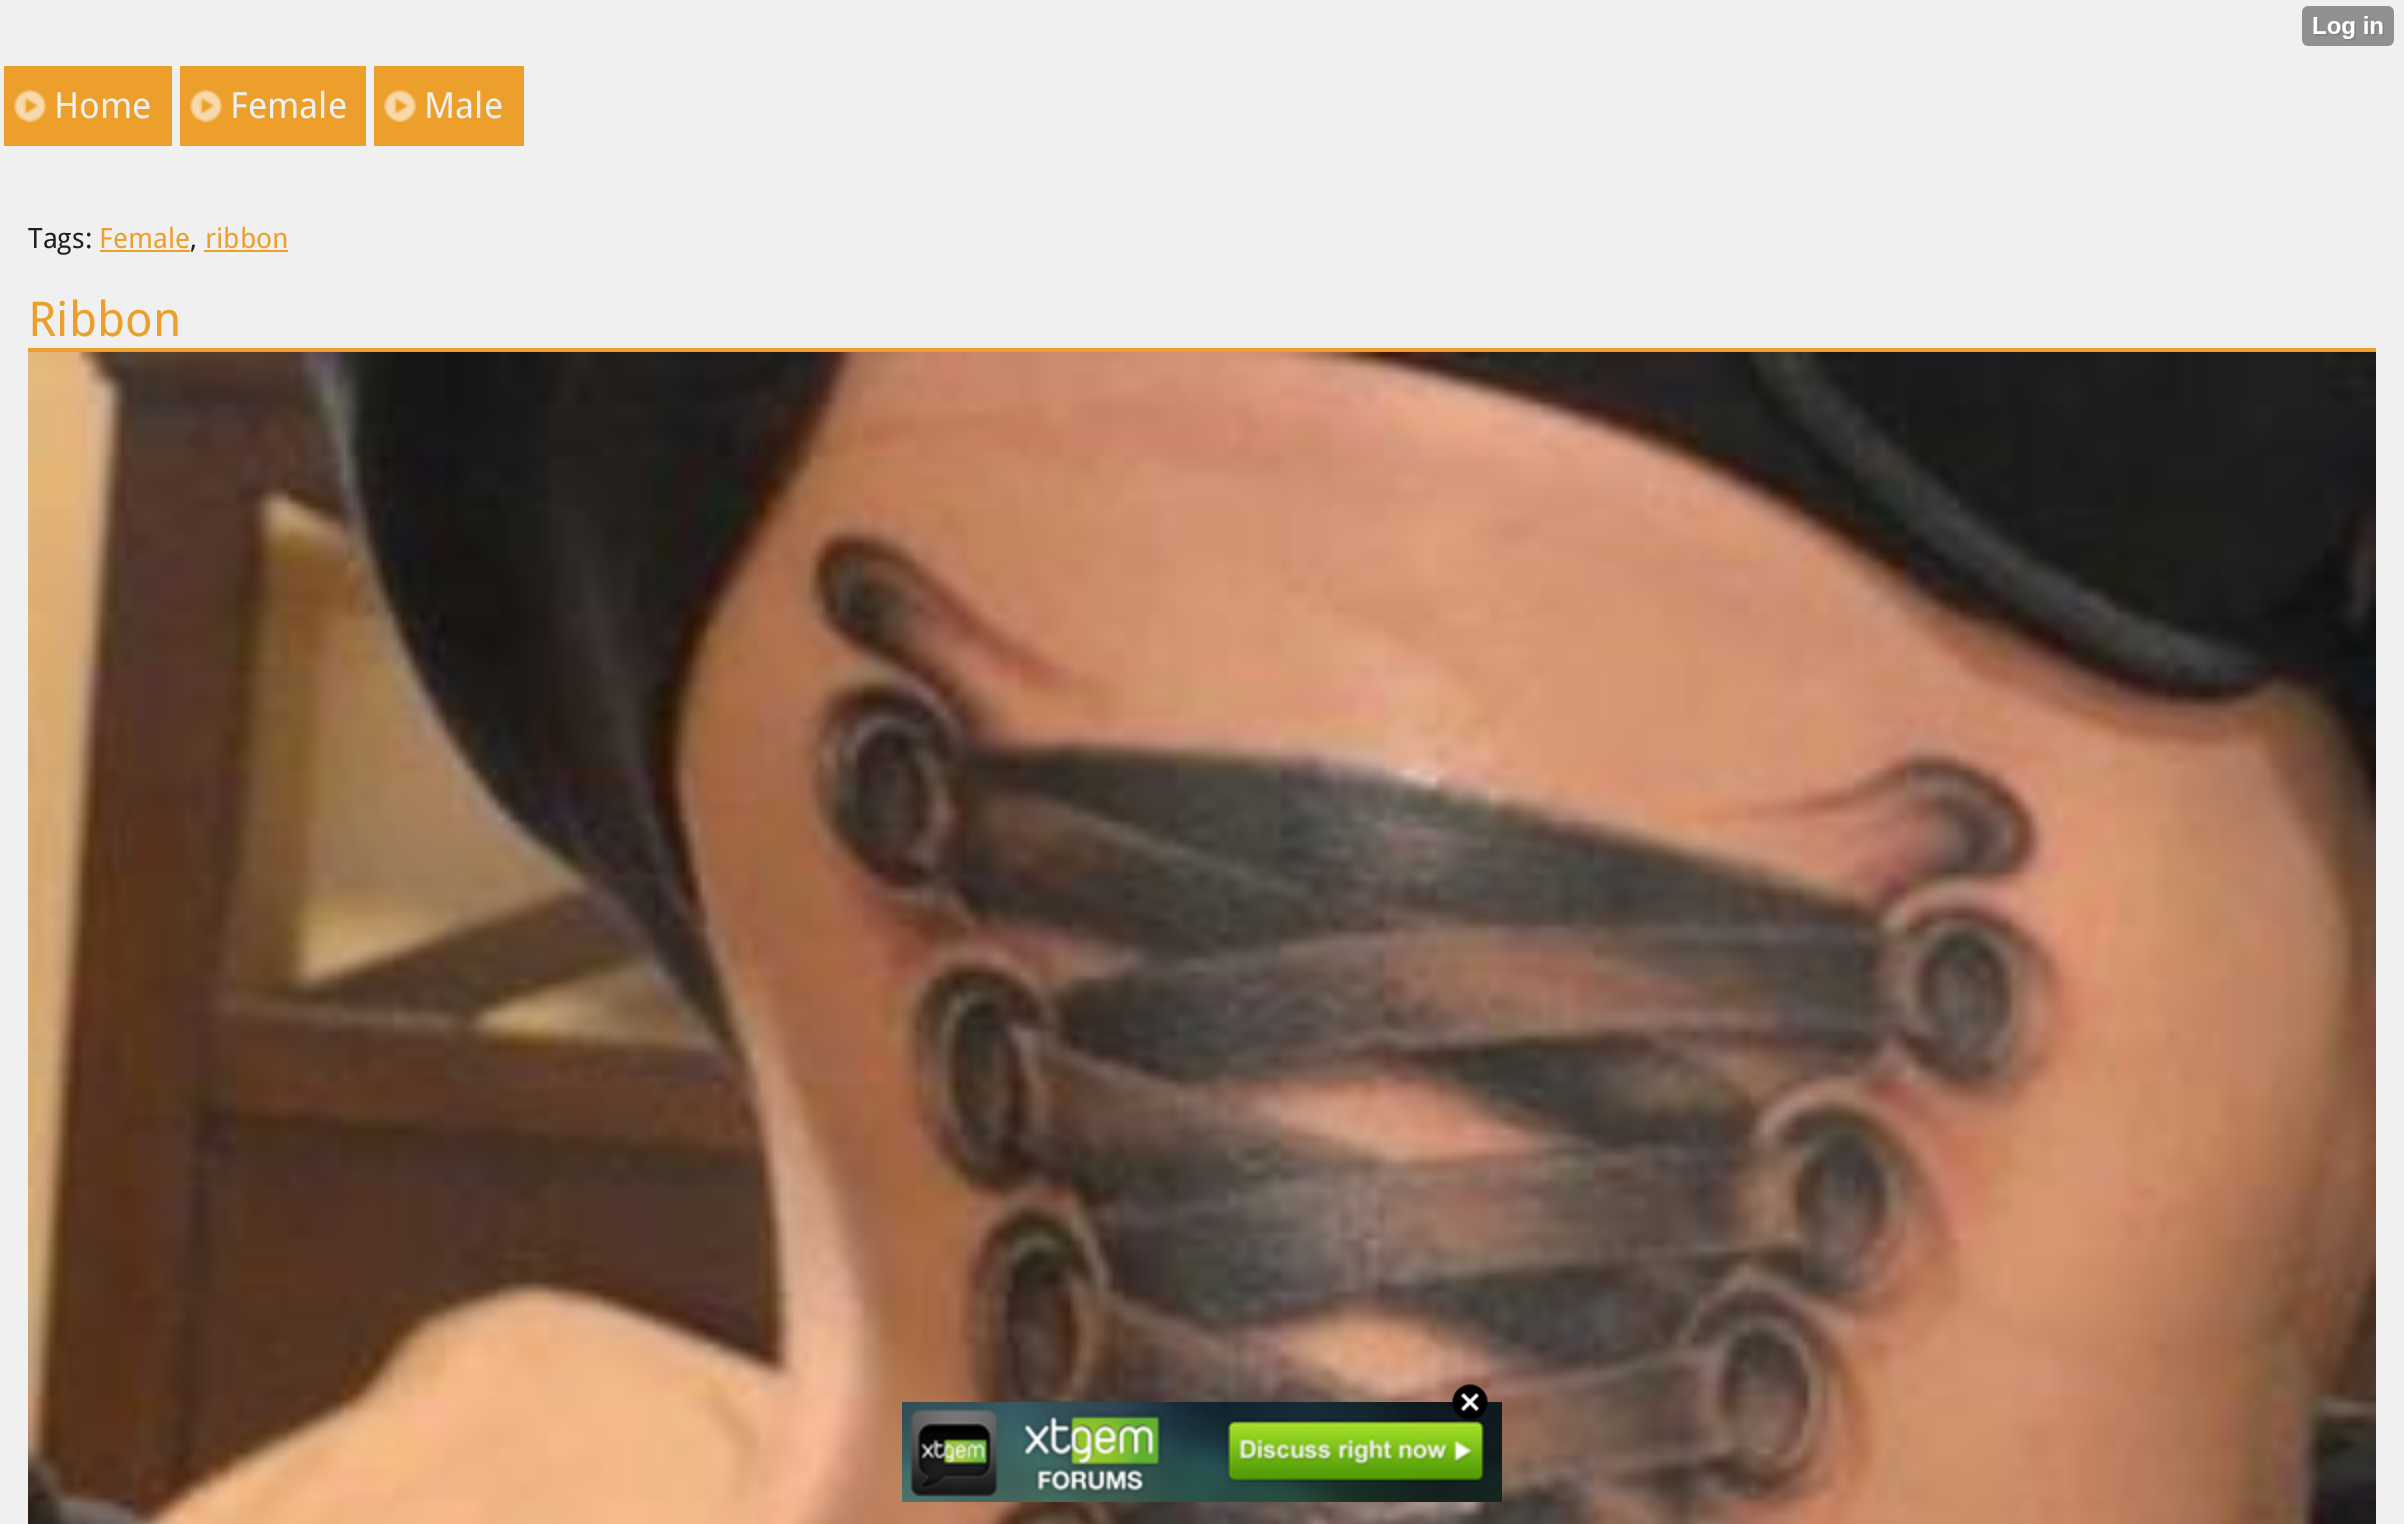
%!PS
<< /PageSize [2404 1524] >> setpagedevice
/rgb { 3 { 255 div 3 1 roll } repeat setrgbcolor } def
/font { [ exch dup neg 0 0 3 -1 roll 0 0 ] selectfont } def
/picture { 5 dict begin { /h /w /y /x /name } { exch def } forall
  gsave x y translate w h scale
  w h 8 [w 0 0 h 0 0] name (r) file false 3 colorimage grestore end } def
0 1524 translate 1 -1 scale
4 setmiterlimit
240 240 240 rgb
0 0 2404 1524 rectfill
(img/1.rgb) 2302 6 92 40 picture
237 159 43 rgb
4 66 168 80 rectfill
(img/2.rgb) 14 90 32 32 picture
180 66 186 80 rectfill
(img/2.rgb) 190 90 32 32 picture
374 66 150 80 rectfill
(img/2.rgb) 384 90 32 32 picture
[
  [100 250 90 2 237 159 43]
  [204 250 84 2 237 159 43]
  [28 348 2348 4 237 159 43]
] { aload pop rgb rectfill } forall
(img/3.rgb) 28 352 2348 1172 picture
(img/5.rgb) 902 1402 600 100 picture
(img/4.rgb) 1452 1384 36 36 picture
/DroidSans-Regular 36 font
240 240 240 rgb
[
  [(Home) 54 118]
  [(Female) 230 118]
  [(Male) 424 118]
] { aload pop moveto show } forall
/DroidSans-Regular 28 font
33 33 33 rgb
28 248 moveto (Tags:) show
237 159 43 rgb
99 248 moveto (Female) show
33 33 33 rgb
190 248 moveto (,) show
237 159 43 rgb
205 248 moveto (ribbon) show
/DroidSans-Regular 48 font
28 336 moveto (Ribbon) show
showpage
